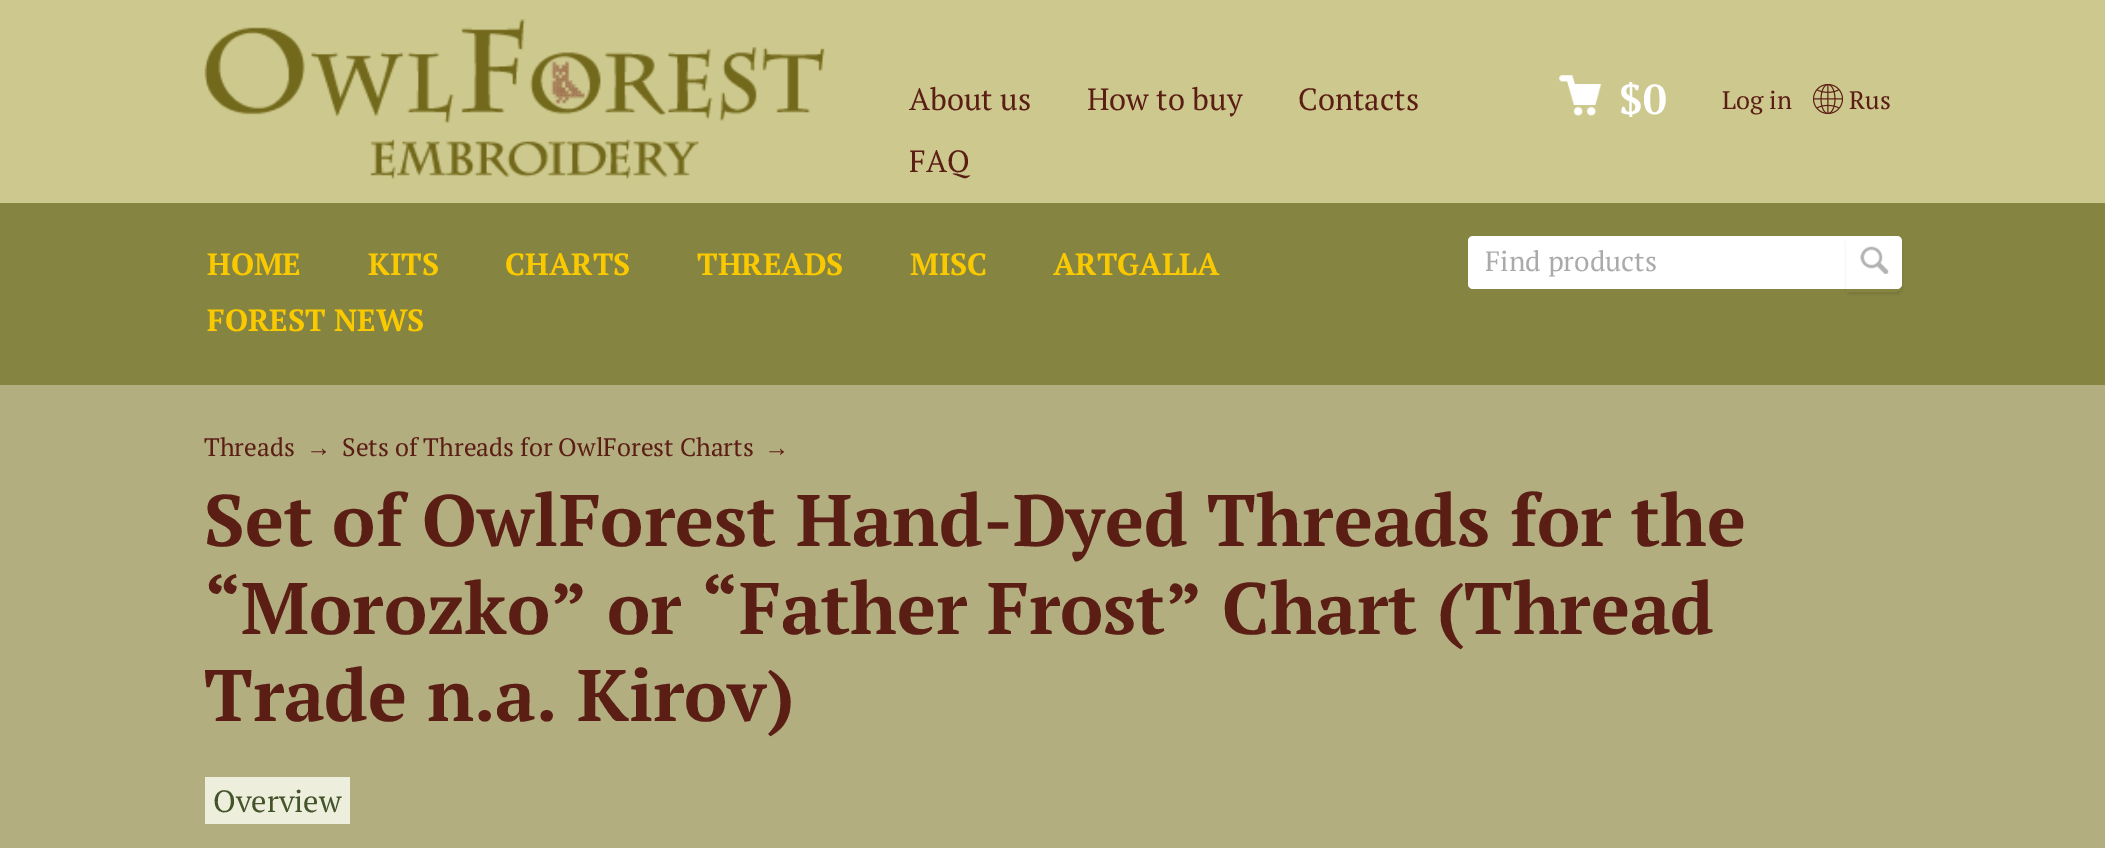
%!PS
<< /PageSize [2105 848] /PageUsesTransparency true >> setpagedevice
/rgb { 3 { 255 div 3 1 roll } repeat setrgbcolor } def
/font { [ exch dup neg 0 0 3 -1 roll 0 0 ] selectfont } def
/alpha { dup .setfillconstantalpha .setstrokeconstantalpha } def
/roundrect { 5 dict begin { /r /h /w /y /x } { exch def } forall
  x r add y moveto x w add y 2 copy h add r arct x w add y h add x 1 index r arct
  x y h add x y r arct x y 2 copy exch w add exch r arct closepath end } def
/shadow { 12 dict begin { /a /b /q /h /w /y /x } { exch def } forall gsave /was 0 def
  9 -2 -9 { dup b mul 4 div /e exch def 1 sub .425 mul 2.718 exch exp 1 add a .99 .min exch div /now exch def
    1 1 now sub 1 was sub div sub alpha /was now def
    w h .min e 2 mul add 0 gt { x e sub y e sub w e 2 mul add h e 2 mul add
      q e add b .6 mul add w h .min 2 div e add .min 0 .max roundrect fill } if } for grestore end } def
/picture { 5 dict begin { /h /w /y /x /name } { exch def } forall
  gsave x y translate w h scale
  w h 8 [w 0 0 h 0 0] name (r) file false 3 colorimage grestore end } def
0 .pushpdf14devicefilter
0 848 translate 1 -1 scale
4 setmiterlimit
178 174 128 rgb
0 0 2105 848 rectfill
134 132 65 rgb
0 203 2105 182 rectfill
205 201 142 rgb
0 0 2105 203 rectfill
(img/1.rgb) 204 19 621 160 picture
(img/2.rgb) 1559 75 43 41 picture
(img/3.rgb) 1813 84 30 30 picture
255 255 255 rgb
1468 236 434 53 5 roundrect fill
gsave
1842 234 moveto 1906 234 lineto 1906 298 lineto 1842 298 lineto closepath 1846 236 moveto 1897 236 lineto 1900 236 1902 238 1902 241 curveto 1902 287 lineto 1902 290 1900 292 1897 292 curveto 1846 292 lineto closepath eoclip newpath
0 0 0 rgb
1846 238 56 56 5 1 0.1 shadow
grestore
(img/4.rgb) 1860 246 29 28 picture
238 238 221 rgb
205 777 145 47 rectfill
/PTSerif-Regular 30.75 font
91 30 20 rgb
[
  [(About us) 909 110]
  [(How to buy) 1087 110]
  [(Contacts) 1298 110]
  [(FAQ) 909 172]
] { aload pop moveto show } forall
/PTSerif-Bold 42 font
255 255 255 rgb
1619 114 moveto ($0) show
/PTSerif-Regular 25.25 font
91 30 20 rgb
1722 109 moveto (Log in) show
1849 109 moveto (Rus) show
/PTSerif-Bold 30.75 font
250 201 0 rgb
[
  [(HOME) 207 275]
  [(KITS) 368 275]
  [(CHARTS) 505 275]
  [(THREADS) 697 275]
  [(MISC) 910 275]
  [(ARTGALLA) 1053 275]
  [(FOREST NEWS) 207 331]
] { aload pop moveto show } forall
gsave
1486 242 317 38 rectclip
/PTSerif-Regular 28 font
170 170 170 rgb
1485 271 moveto (Find products) show
grestore
/PTSerif-Regular 25.25 font
91 30 20 rgb
204 456 moveto (Threads) show
/LiberationSans-Regular 25.25 font
306 456 moveto (→) show
/PTSerif-Regular 25.25 font
342 456 moveto (Sets of Threads for OwlForest Charts) show
/LiberationSans-Regular 25.25 font
764 456 moveto (→) show
/PTSerif-Bold 72.8 font
[
  [(Set of OwlForest Hand-Dyed Threads for the) 204 546]
  [(“Morozko” or “Father Frost” Chart \(Thread) 204 634]
  [(Trade n.a. Kirov\)) 204 721]
] { aload pop moveto show } forall
/PTSerif-Regular 30.75 font
67 84 42 rgb
213 812 moveto (Overview) show
.poppdf14devicefilter showpage
